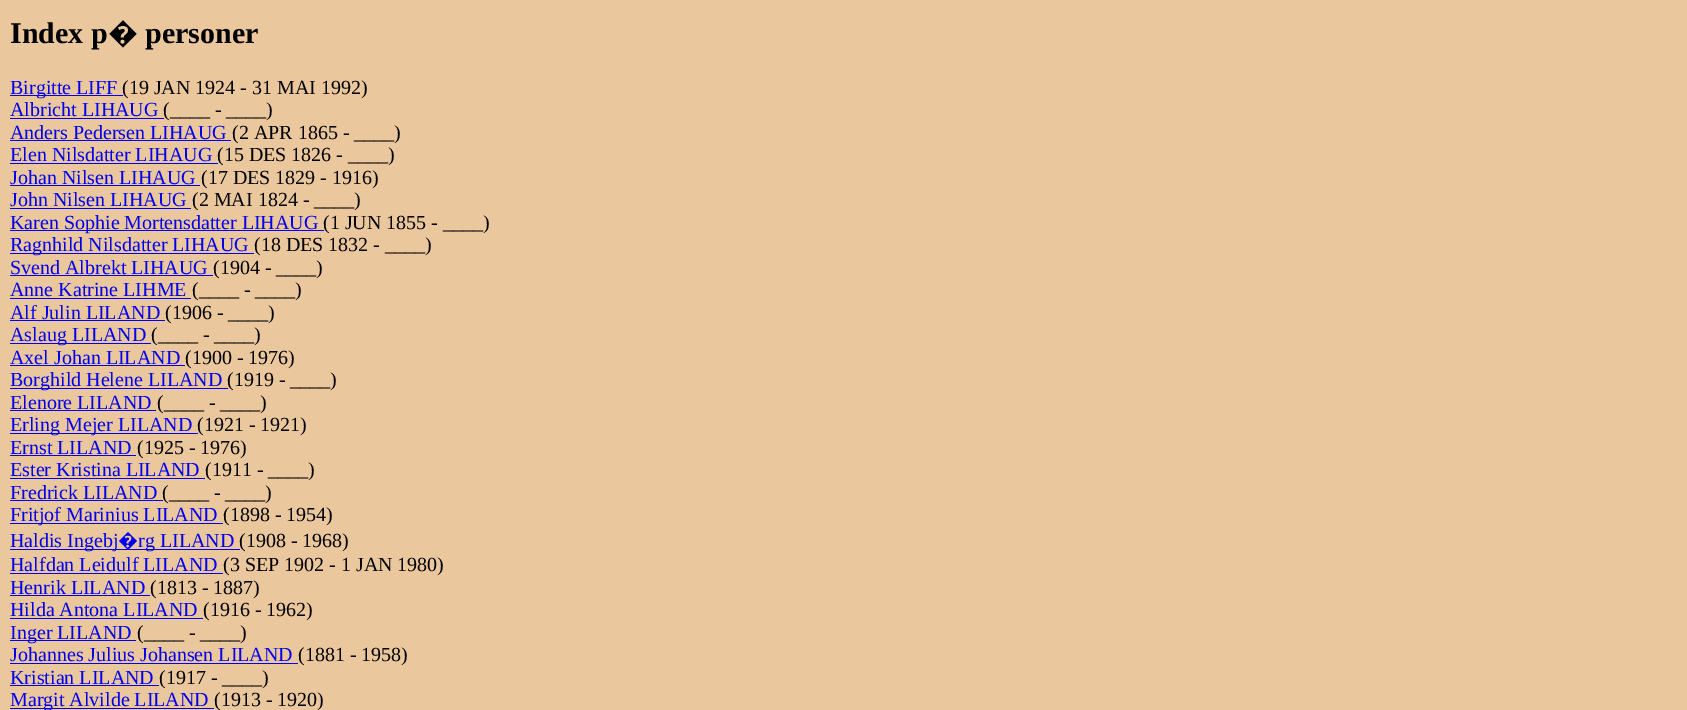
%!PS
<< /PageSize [1687 710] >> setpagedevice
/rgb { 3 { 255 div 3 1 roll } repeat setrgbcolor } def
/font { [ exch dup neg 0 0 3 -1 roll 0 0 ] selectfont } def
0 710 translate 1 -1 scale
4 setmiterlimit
235 199 158 rgb
0 0 1687 710 rectfill
[
  [10 95 113 1 0 0 238]
  [10 118 154 1 0 0 238]
  [10 140 221 1 0 0 238]
  [10 163 208 1 0 0 238]
  [10 185 190 1 0 0 238]
  [10 208 181 1 0 0 238]
  [10 230 314 1 0 0 238]
  [10 253 244 1 0 0 238]
  [10 275 203 1 0 0 238]
  [10 298 181 1 0 0 238]
  [10 320 155 1 0 0 238]
  [10 343 141 1 0 0 238]
  [10 365 175 1 0 0 238]
  [10 388 218 1 0 0 238]
  [10 410 146 1 0 0 238]
  [10 433 188 1 0 0 238]
  [10 455 126 1 0 0 238]
  [10 478 195 1 0 0 238]
  [10 500 153 1 0 0 238]
  [10 523 213 1 0 0 238]
  [10 549 230 1 0 0 238]
  [10 573 213 1 0 0 238]
  [10 595 140 1 0 0 238]
  [10 618 193 1 0 0 238]
  [10 640 126 1 0 0 238]
  [10 663 288 1 0 0 238]
  [10 685 149 1 0 0 238]
  [10 708 204 1 0 0 238]
] { aload pop rgb rectfill } forall
/LiberationSerif-Bold 30 font
0 0 0 rgb
10 43 moveto (Index p) show
/NotoSans-Bold 30 font
108 43 moveto (�) show
/LiberationSerif-Bold 30 font
145 43 moveto (personer) show
/LiberationSerif-Regular 20 font
0 0 238 rgb
10 94 moveto (Birgitte LIFF) show
0 0 0 rgb
122 94 moveto (\(19 JAN 1924 - 31 MAI 1992\)) show
0 0 238 rgb
10 116 moveto (Albricht LIHAUG) show
0 0 0 rgb
163 116 moveto (\(____ - ____\)) show
0 0 238 rgb
10 139 moveto (Anders Pedersen LIHAUG) show
0 0 0 rgb
232 139 moveto (\(2 APR 1865 - ____\)) show
0 0 238 rgb
10 161 moveto (Elen Nilsdatter LIHAUG) show
0 0 0 rgb
217 161 moveto (\(15 DES 1826 - ____\)) show
0 0 238 rgb
10 184 moveto (Johan Nilsen LIHAUG) show
0 0 0 rgb
201 184 moveto (\(17 DES 1829 - 1916\)) show
0 0 238 rgb
10 206 moveto (John Nilsen LIHAUG) show
0 0 0 rgb
192 206 moveto (\(2 MAI 1824 - ____\)) show
0 0 238 rgb
10 229 moveto (Karen Sophie Mortensdatter LIHAUG) show
0 0 0 rgb
323 229 moveto (\(1 JUN 1855 - ____\)) show
0 0 238 rgb
10 251 moveto (Ragnhild Nilsdatter LIHAUG) show
0 0 0 rgb
254 251 moveto (\(18 DES 1832 - ____\)) show
0 0 238 rgb
10 274 moveto (Svend Albrekt LIHAUG) show
0 0 0 rgb
213 274 moveto (\(1904 - ____\)) show
0 0 238 rgb
10 296 moveto (Anne Katrine LIHME) show
0 0 0 rgb
192 296 moveto (\(____ - ____\)) show
0 0 238 rgb
10 319 moveto (Alf Julin LILAND) show
0 0 0 rgb
165 319 moveto (\(1906 - ____\)) show
0 0 238 rgb
10 341 moveto (Aslaug LILAND) show
0 0 0 rgb
151 341 moveto (\(____ - ____\)) show
0 0 238 rgb
10 364 moveto (Axel Johan LILAND) show
0 0 0 rgb
185 364 moveto (\(1900 - 1976\)) show
0 0 238 rgb
10 386 moveto (Borghild Helene LILAND) show
0 0 0 rgb
227 386 moveto (\(1919 - ____\)) show
0 0 238 rgb
10 409 moveto (Elenore LILAND) show
0 0 0 rgb
157 409 moveto (\(____ - ____\)) show
0 0 238 rgb
10 431 moveto (Erling Mejer LILAND) show
0 0 0 rgb
197 431 moveto (\(1921 - 1921\)) show
0 0 238 rgb
10 454 moveto (Ernst LILAND) show
0 0 0 rgb
137 454 moveto (\(1925 - 1976\)) show
0 0 238 rgb
10 476 moveto (Ester Kristina LILAND) show
0 0 0 rgb
205 476 moveto (\(1911 - ____\)) show
0 0 238 rgb
10 499 moveto (Fredrick LILAND) show
0 0 0 rgb
162 499 moveto (\(____ - ____\)) show
0 0 238 rgb
10 521 moveto (Fritjof Marinius LILAND) show
0 0 0 rgb
223 521 moveto (\(1898 - 1954\)) show
0 0 238 rgb
10 547 moveto (Haldis Ingebj) show
/NotoSans-Regular 20 font
118 547 moveto (�) show
/LiberationSerif-Regular 20 font
138 547 moveto (rg LILAND) show
0 0 0 rgb
239 547 moveto (\(1908 - 1968\)) show
0 0 238 rgb
10 571 moveto (Halfdan Leidulf LILAND) show
0 0 0 rgb
223 571 moveto (\(3 SEP 1902 - 1 JAN 1980\)) show
0 0 238 rgb
10 594 moveto (Henrik LILAND) show
0 0 0 rgb
150 594 moveto (\(1813 - 1887\)) show
0 0 238 rgb
10 616 moveto (Hilda Antona LILAND) show
0 0 0 rgb
203 616 moveto (\(1916 - 1962\)) show
0 0 238 rgb
10 639 moveto (Inger LILAND) show
0 0 0 rgb
137 639 moveto (\(____ - ____\)) show
0 0 238 rgb
10 661 moveto (Johannes Julius Johansen LILAND) show
0 0 0 rgb
298 661 moveto (\(1881 - 1958\)) show
0 0 238 rgb
10 684 moveto (Kristian LILAND) show
0 0 0 rgb
159 684 moveto (\(1917 - ____\)) show
0 0 238 rgb
10 706 moveto (Margit Alvilde LILAND) show
0 0 0 rgb
214 706 moveto (\(1913 - 1920\)) show
showpage
